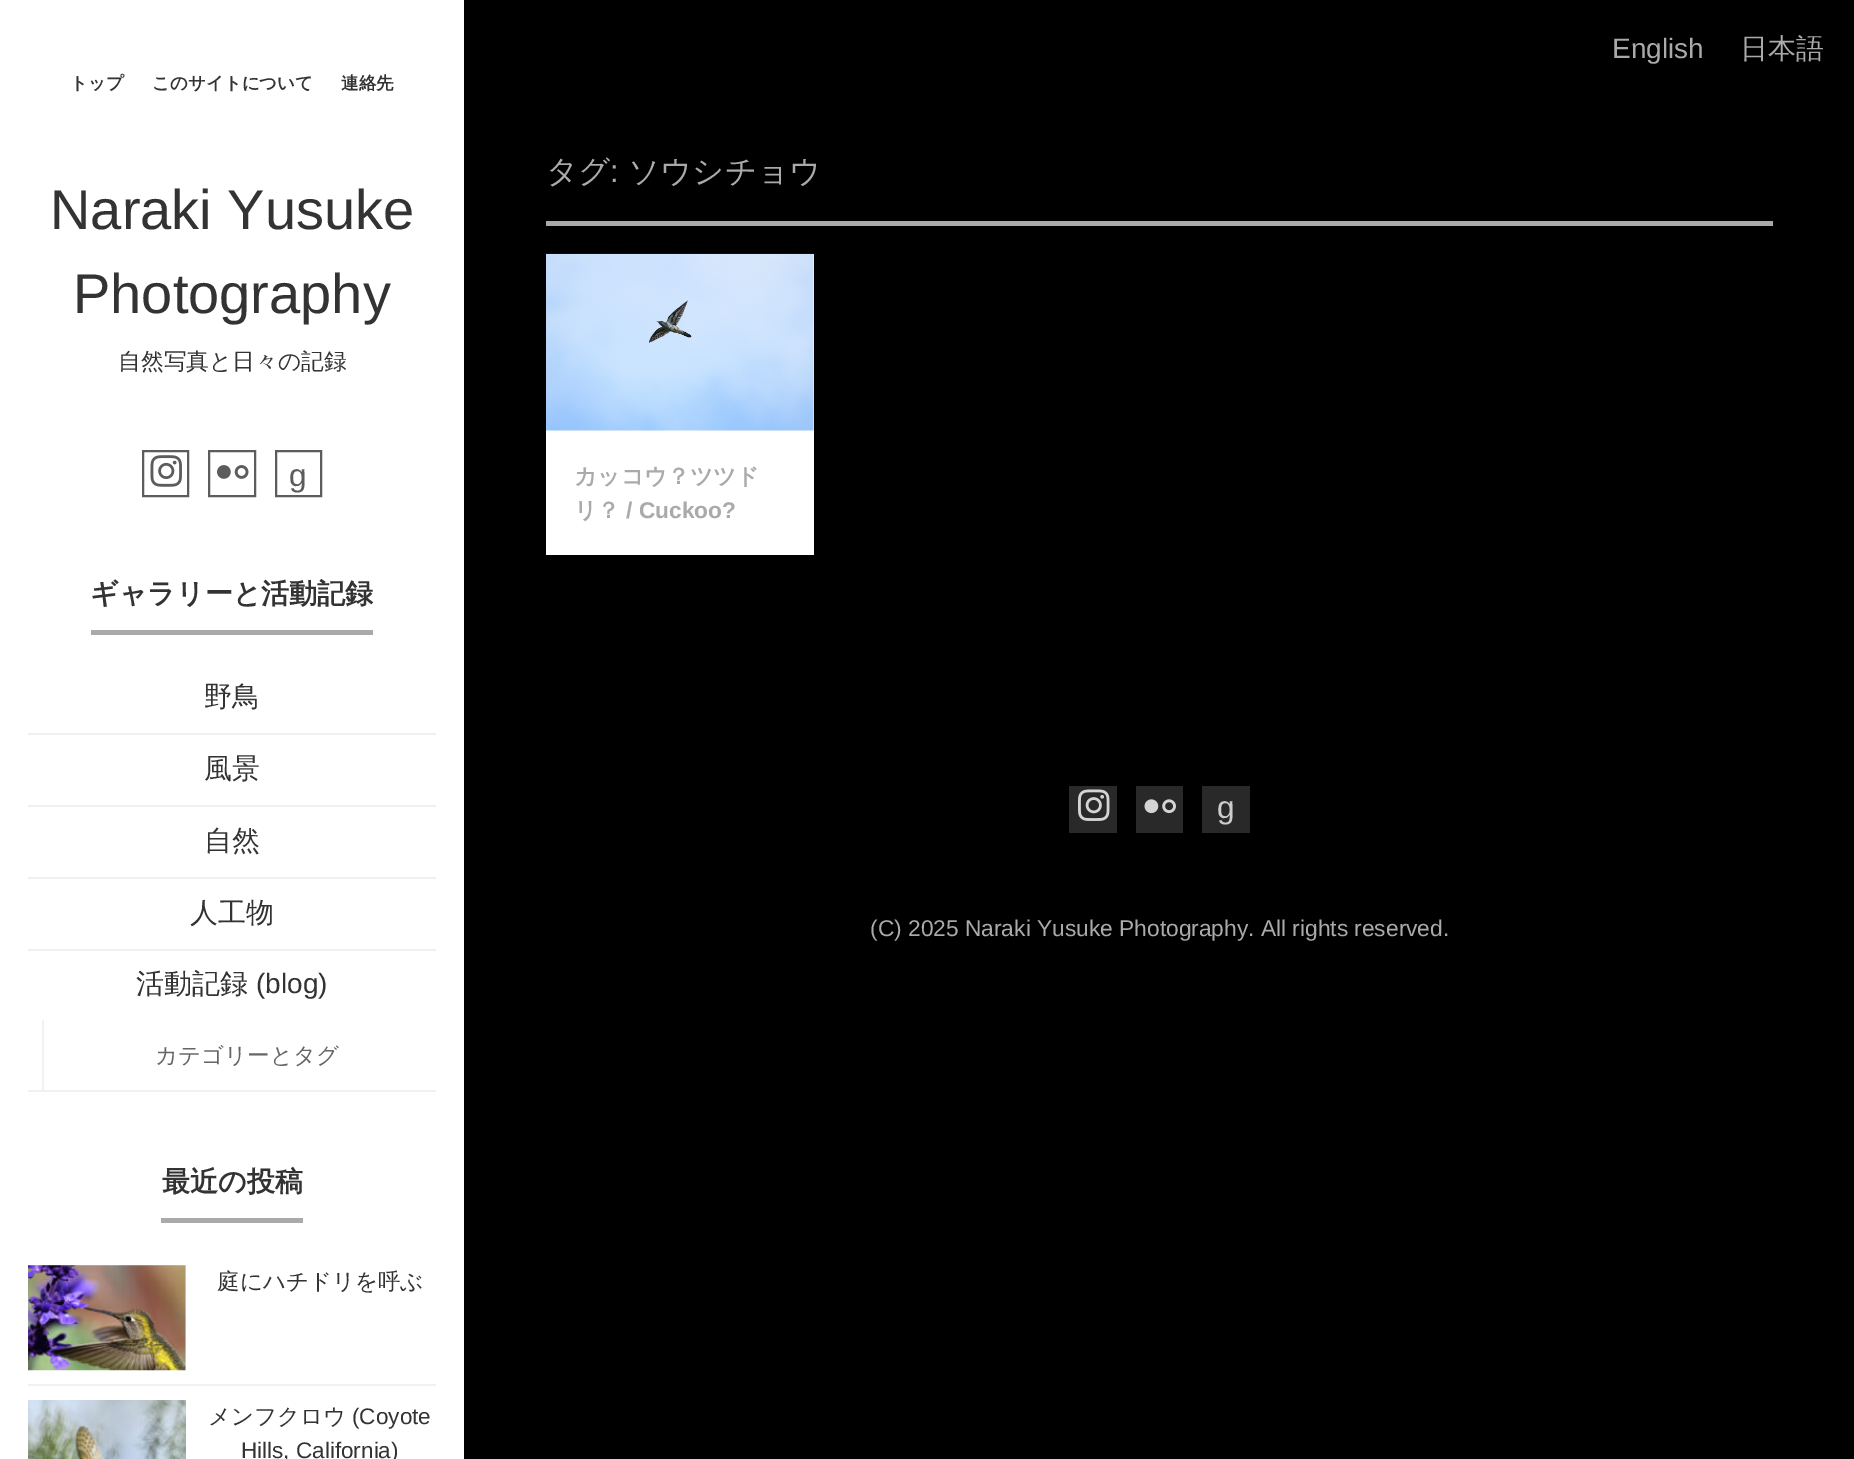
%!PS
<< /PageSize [1854 1459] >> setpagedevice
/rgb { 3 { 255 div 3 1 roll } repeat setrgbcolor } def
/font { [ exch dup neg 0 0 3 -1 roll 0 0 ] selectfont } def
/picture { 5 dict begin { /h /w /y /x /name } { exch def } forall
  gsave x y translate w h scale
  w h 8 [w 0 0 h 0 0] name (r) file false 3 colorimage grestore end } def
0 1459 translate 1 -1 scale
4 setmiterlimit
0 0 0 rgb
0 0 1854 1459 rectfill
255 255 255 rgb
0 0 464 1459 rectfill
92 92 92 rgb
2 setlinewidth
143 451 45 45 rectstroke
(img/1.rgb) 150 455 32 32 picture
209 451 46 45 rectstroke
(img/2.rgb) 217 465 32 14 picture
276 451 45 45 rectstroke
[
  [91 630 282 5 170 170 170]
  [28 733 408 2 241 241 241]
  [28 805 408 2 241 241 241]
  [28 877 408 2 241 241 241]
  [28 949 408 2 241 241 241]
  [28 1090 408 2 241 241 241]
  [42 1020 2 70 241 241 241]
  [161 1218 142 5 170 170 170]
  [28 1384 408 2 241 241 241]
  [28 1265 158 105 241 241 241]
] { aload pop rgb rectfill } forall
(img/3.rgb) 28 1265 158 106 picture
(img/4.rgb) 28 1400 158 59 picture
170 170 170 rgb
546 221 1227 5 rectfill
255 255 255 rgb
546 254 268 301 rectfill
(img/5.rgb) 546 253 268 178 picture
41 41 41 rgb
1069 786 48 47 rectfill
(img/6.rgb) 1078 789 32 32 picture
1136 786 47 47 rectfill
(img/7.rgb) 1144 799 32 15 picture
1202 786 48 47 rectfill
/WenQuanYiZenHei-Bold 17.5 font
51 51 51 rgb
[
  [(トップ) 70 89]
  [(このサイトについて) 152 89]
  [(連絡先) 341 89]
] { aload pop moveto show } forall
/LiberationSans-Regular 56 font
50 229 moveto (Naraki Yusuke) show
73 313 moveto (Photography) show
/WenQuanYiZenHei-Medium 22.75 font
118 369 moveto (自然写真と日々の記録) show
/LiberationSans-Regular 31.5 font
92 92 92 rgb
289 486 moveto (g) show
/WenQuanYiZenHei-Bold 28 font
51 51 51 rgb
90 603 moveto (ギャラリーと活動記録) show
/WenQuanYiZenHei-Medium 28 font
[
  [(野鳥) 204 706]
  [(風景) 204 778]
  [(自然) 204 850]
  [(人工物) 190 922]
  [(活動記録) 136 993]
] { aload pop moveto show } forall
/LiberationSans-Regular 28 font
256 993 moveto (\(blog\)) show
/WenQuanYiZenHei-Medium 22.5 font
102 102 102 rgb
155 1063 moveto (カテゴリーとタグ) show
/WenQuanYiZenHei-Bold 28 font
51 51 51 rgb
162 1191 moveto (最近の投稿) show
/WenQuanYiZenHei-Medium 22.5 font
217 1289 moveto (庭にハチドリを呼ぶ) show
208 1424 moveto (メンフクロウ) show
/LiberationSans-Regular 22.5 font
352 1424 moveto (\(Coyote) show
241 1458 moveto (Hills, California\)) show
/LiberationSans-Regular 28 font
170 170 170 rgb
1612 58 moveto (English) show
/WenQuanYiZenHei-Medium 28 font
1740 58 moveto (日本語) show
/WenQuanYiZenHei-Medium 31.5 font
546 182 moveto (タグ) show
/LiberationSans-Regular 31.5 font
610 182 moveto (:) show
/WenQuanYiZenHei-Medium 31.5 font
628 182 moveto (ソウシチョウ) show
/WenQuanYiZenHei-Bold 22.75 font
574 484 moveto (カッコウ？ツツド) show
574 518 moveto (リ？) show
/LiberationSans-Bold 22.75 font
626 518 moveto (/ Cuckoo?) show
/LiberationSans-Regular 31.5 font
204 204 204 rgb
1217 818 moveto (g) show
/LiberationSans-Regular 22.75 font
170 170 170 rgb
870 936 moveto (\(C\) 2025 Naraki Yusuke Photography. All rights reserved.) show
showpage
